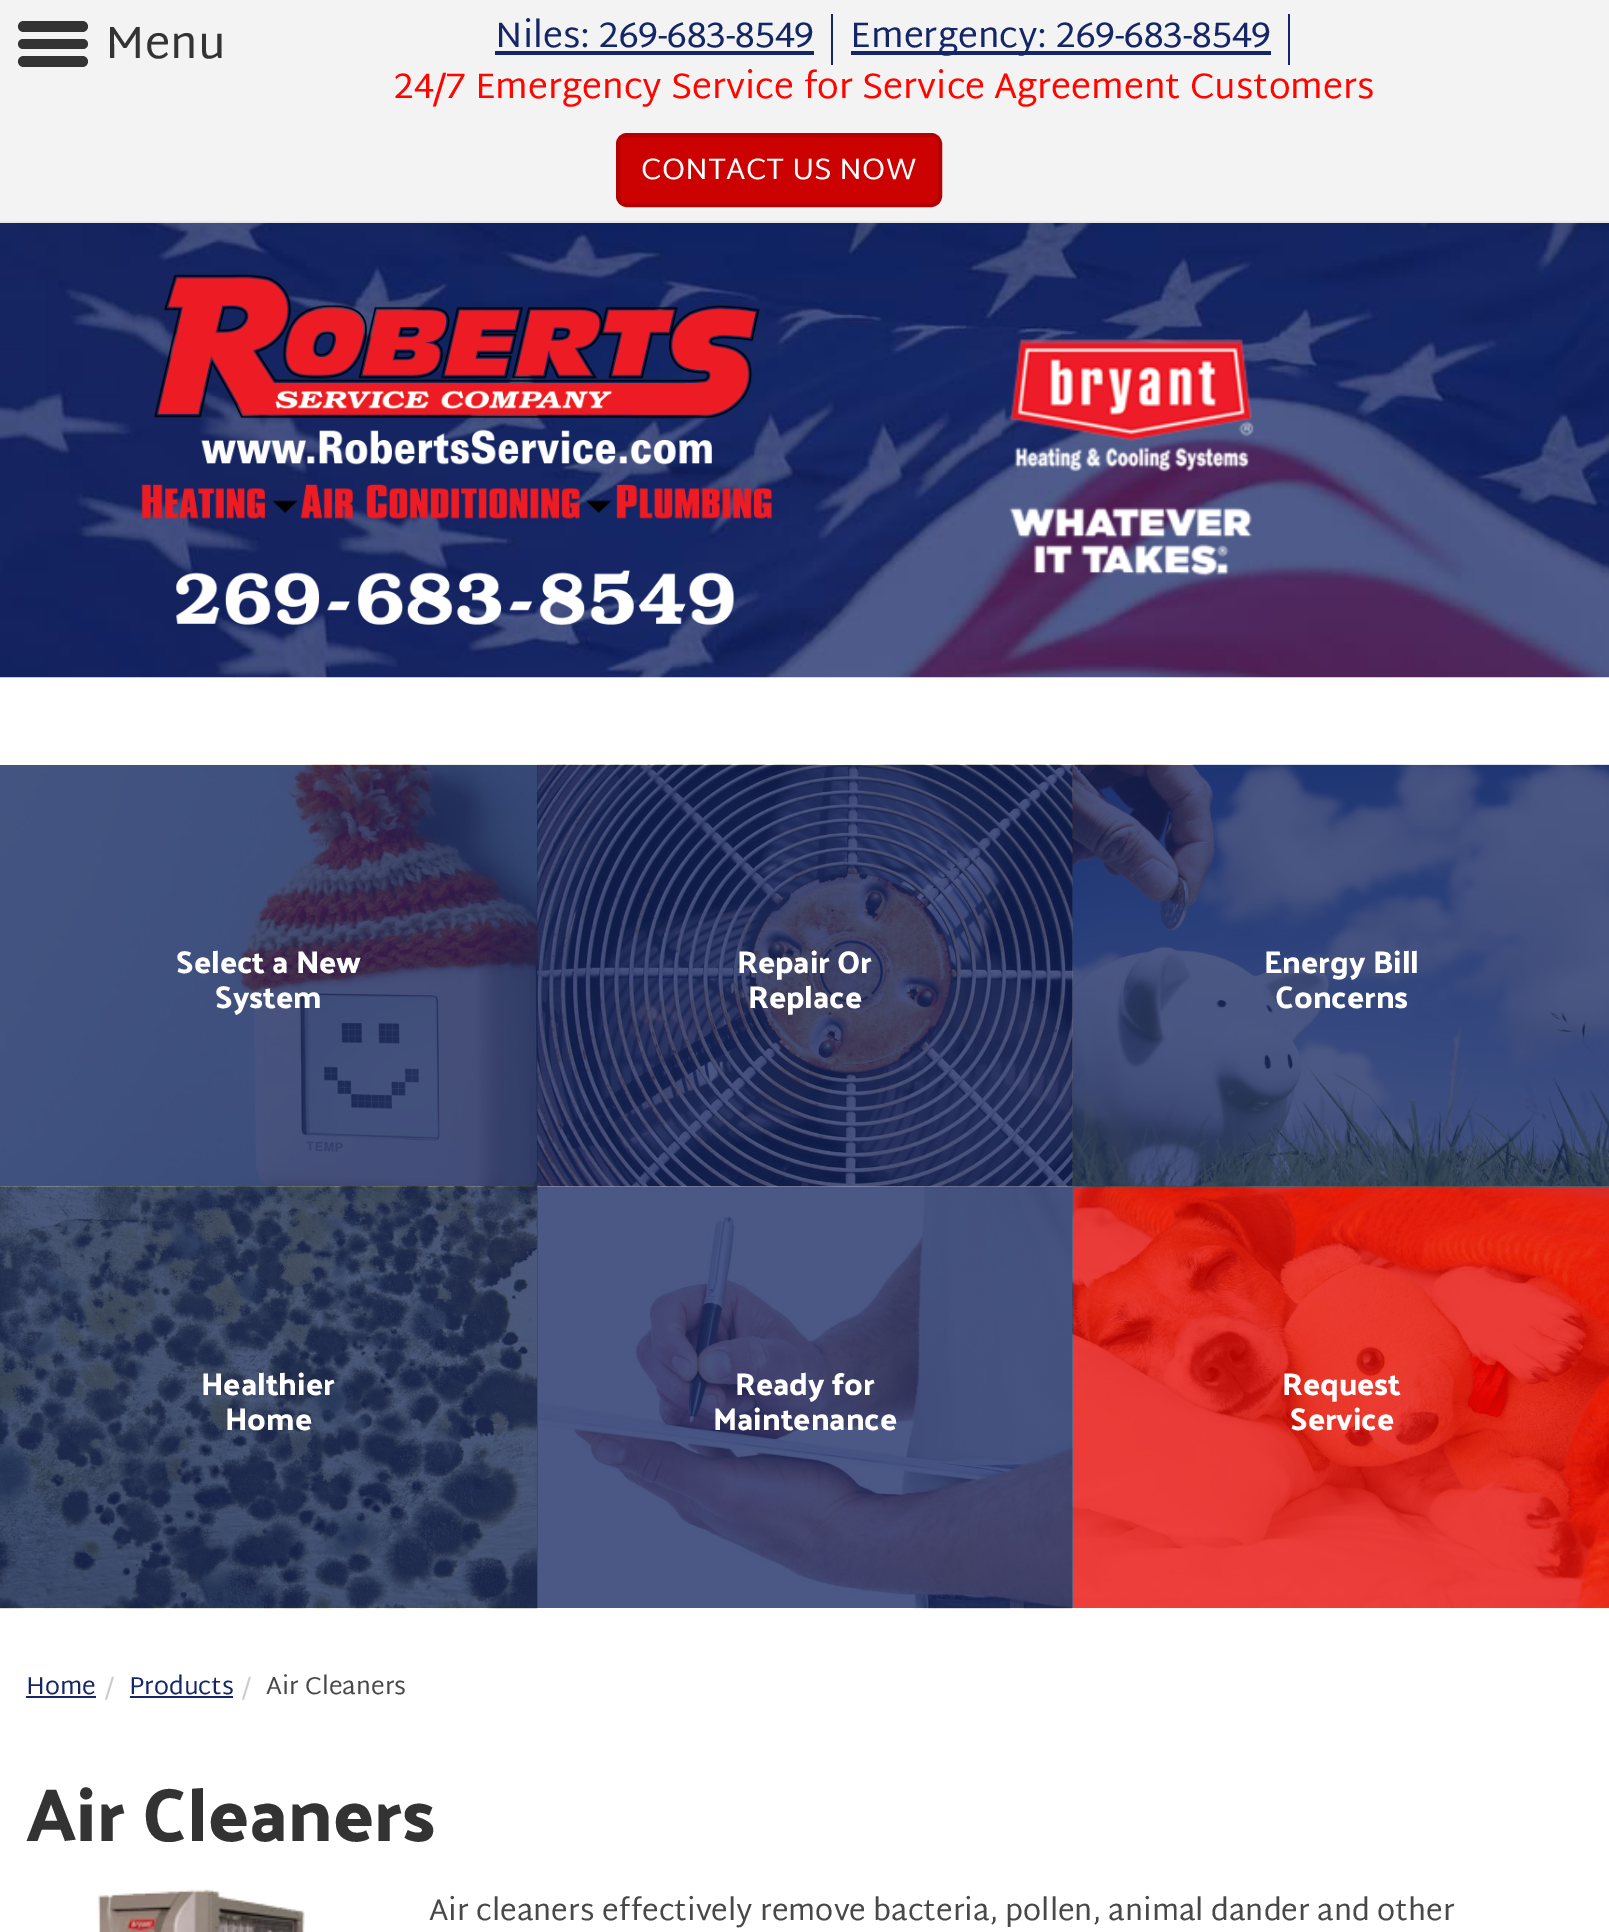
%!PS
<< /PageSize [1609 1932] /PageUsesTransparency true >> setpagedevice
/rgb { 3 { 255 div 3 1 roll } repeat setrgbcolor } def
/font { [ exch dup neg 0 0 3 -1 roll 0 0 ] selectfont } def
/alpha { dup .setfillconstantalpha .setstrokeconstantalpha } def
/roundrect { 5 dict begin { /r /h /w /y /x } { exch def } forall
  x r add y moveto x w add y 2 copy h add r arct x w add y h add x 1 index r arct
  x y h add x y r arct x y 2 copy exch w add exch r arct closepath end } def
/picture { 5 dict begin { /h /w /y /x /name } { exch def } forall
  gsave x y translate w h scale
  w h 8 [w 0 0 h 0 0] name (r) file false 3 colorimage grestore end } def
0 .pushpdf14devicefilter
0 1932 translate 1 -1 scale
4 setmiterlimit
255 255 255 rgb
0 0 1609 1932 rectfill
243 243 243 rgb
0 0 1609 221 rectfill
231 231 231 rgb
0 221 1609 2 rectfill
51 51 51 rgb
18 21 70 11 5.5 roundrect fill
18 39 70 10 5 roundrect fill
18 56 70 11 5.5 roundrect fill
[
  [831 14 2 51 20 38 102]
  [495 51 319 4 20 38 102]
  [1288 14 2 51 20 38 102]
  [851 51 420 4 20 38 102]
] { aload pop rgb rectfill } forall
204 1 1 rgb
618 135 322 70 9 roundrect gsave fill grestore
179 1 1 rgb
4 setlinewidth
stroke
(img/1.rgb) 0 223 1609 455 picture
(img/2.rgb) 141 274 631 351 picture
(img/3.rgb) 1009 339 245 238 picture
14 27 71 rgb
0 765 537 422 rectfill
(img/4.rgb) 0 764 538 423 picture
0 0 0 rgb
537 765 536 422 rectfill
(img/5.rgb) 537 764 536 423 picture
0.7 alpha
20 38 102 rgb
537 765 536 422 rectfill
1 alpha
14 27 71 rgb
1073 765 536 422 rectfill
(img/6.rgb) 1072 764 537 423 picture
(img/7.rgb) 0 1186 538 423 picture
0 0 0 rgb
537 1187 536 421 rectfill
(img/8.rgb) 537 1186 536 423 picture
0.7 alpha
20 38 102 rgb
537 1187 536 421 rectfill
1 alpha
(img/9.rgb) 1072 1186 537 423 picture
26 1696 70 2 rectfill
130 1696 103 2 rectfill
(img/10.rgb) 97 1889 208 43 picture
/MartelSans-Regular 45.5 font
51 51 51 rgb
105 58 moveto (Menu) show
/MartelSans-Regular 35.7 font
20 38 102 rgb
495 47 moveto (Niles: 269-683-8549) show
850 47 moveto (Emergency: 269-683-8549) show
255 5 0 rgb
394 98 moveto (24/7 Emergency Service for Service Agreement Customers) show
/MartelSans-Regular 29.75 font
255 255 255 rgb
641 179 moveto (CONTACT US NOW) show
/PalanquinDark-Medium 31.5 font
[
  [(Select a New) 176 973]
  [(System) 215 1008]
  [(Repair Or) 737 973]
  [(Replace) 748 1008]
  [(Energy Bill) 1264 973]
  [(Concerns) 1275 1008]
  [(Healthier) 201 1395]
  [(Home) 225 1430]
  [(Ready for) 735 1395]
  [(Maintenance) 713 1430]
  [(Request) 1282 1395]
  [(Service) 1290 1430]
] { aload pop moveto show } forall
/MartelSans-Regular 24.5 font
20 38 102 rgb
26 1694 moveto (Home) show
204 204 204 rgb
105 1694 moveto (/) show
20 38 102 rgb
129 1694 moveto (Products) show
204 204 204 rgb
242 1694 moveto (/) show
72 72 72 rgb
266 1694 moveto (Air Cleaners) show
/PalanquinDark-Medium 75.25 font
51 51 51 rgb
26 1841 moveto (Air Cleaners) show
/MartelSans-Regular 29.75 font
72 72 72 rgb
429 1920 moveto (Air cleaners effectively remove bacteria, pollen, animal dander and other) show
.poppdf14devicefilter showpage
